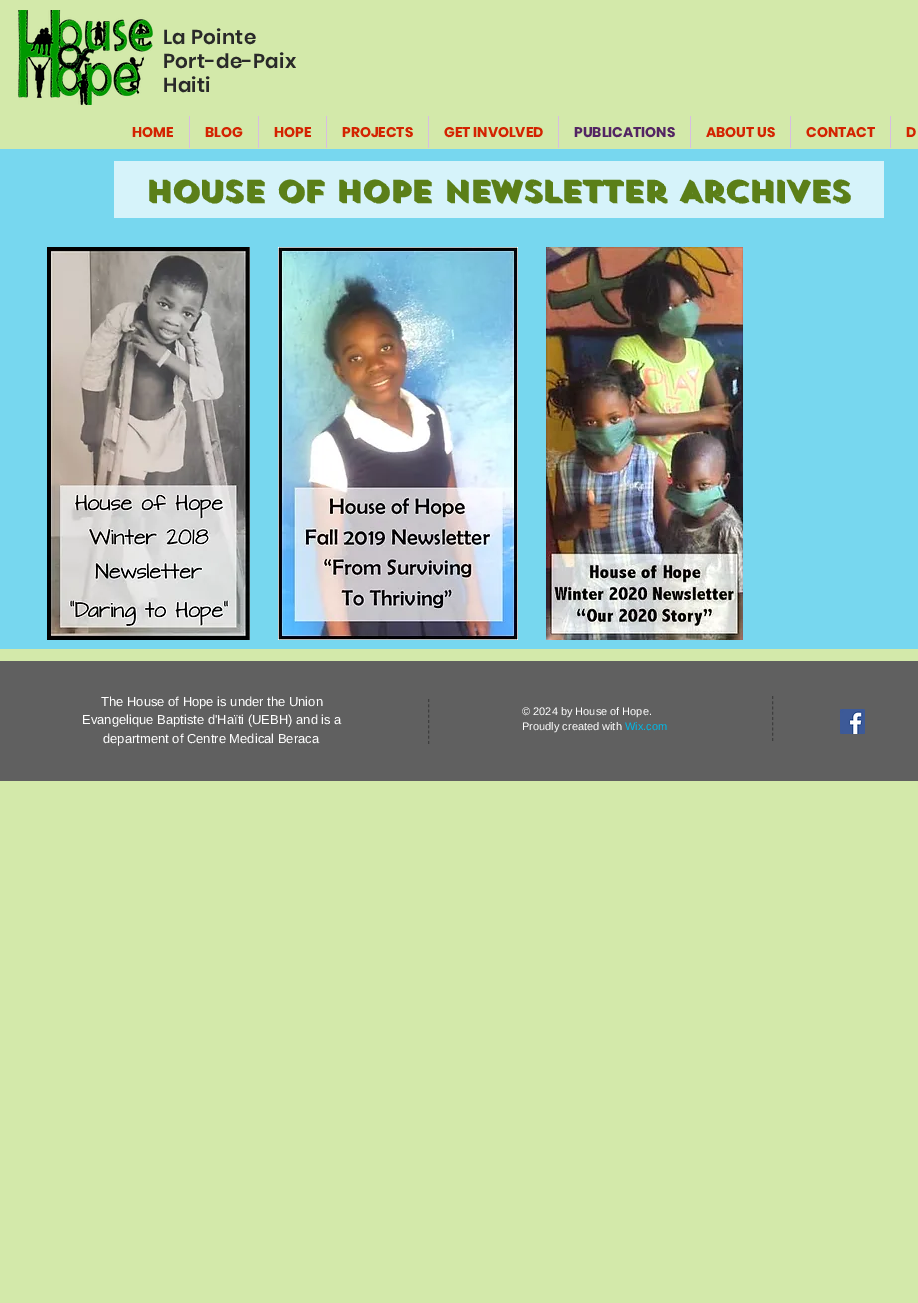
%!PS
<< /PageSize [918 1303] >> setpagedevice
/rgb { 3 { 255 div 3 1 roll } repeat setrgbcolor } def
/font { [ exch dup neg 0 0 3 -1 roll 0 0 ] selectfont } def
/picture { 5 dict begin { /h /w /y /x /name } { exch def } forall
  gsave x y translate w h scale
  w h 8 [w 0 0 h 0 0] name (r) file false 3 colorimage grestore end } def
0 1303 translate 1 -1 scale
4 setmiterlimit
211 233 170 rgb
0 0 918 1303 rectfill
(img/1.rgb) 18 10 135 95 picture
[
  [189 116 1 32 216 189 226]
  [258 116 1 32 216 189 226]
  [326 116 1 32 216 189 226]
  [428 116 1 32 216 189 226]
  [558 116 1 32 216 189 226]
  [690 116 1 32 216 189 226]
  [790 116 1 32 216 189 226]
  [890 116 1 32 216 189 226]
  [0 149 918 500 119 215 239]
  [114 161 770 57 214 243 250]
] { aload pop rgb rectfill } forall
(img/2.rgb) 47 247 203 393 picture
(img/3.rgb) 278 247 240 393 picture
(img/4.rgb) 546 247 197 393 picture
96 96 96 rgb
0 661 918 120 rectfill
62 62 62 rgb
[3 2.25] 0 setdash
428.5 699 moveto 428.5 744 lineto stroke
772.5 696 moveto 772.5 741 lineto stroke
(img/5.rgb) 840 709 25 25 picture
/Poppins-SemiBold 20 font
41 41 41 rgb
163 44 moveto 0.25 0 (La Pointe) ashow
163 68 moveto 0.25 0 (Port-de-Paix) ashow
163 92 moveto 0.25 0 (Haiti) ashow
/Poppins-Bold 14 font
211 35 0 rgb
[
  [(HOME) 132 137]
  [(BLOG) 205 137]
  [(HOPE) 274 137]
  [(PROJECTS) 342 137]
  [(GET INVOLVED) 444 137]
] { aload pop moveto show } forall
83 37 99 rgb
574 137 moveto (PUBLICATIONS) show
211 35 0 rgb
[
  [(ABOUT US) 706 137]
  [(CONTACT) 806 137]
  [(D) 906 137]
] { aload pop moveto show } forall
/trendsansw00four-Bold 29 font
91 127 24 rgb
145 201 moveto (House of Hope Newsletter Archives) show
/LiberationSans-Regular 13 font
255 255 255 rgb
[
  [(The House of Hope is under the Union) 101 706]
  [(Evangelique Baptiste d'Haïti \(UEBH\) and is a) 82 724]
  [(department of Centre Medical Beraca) 103 743]
] { aload pop moveto show } forall
/LiberationSans-Regular 11 font
522 715 moveto (© 2024 by House of Hope.) show
522 730 moveto (Proudly created with) show
0 185 232 rgb
625 730 moveto (Wix.com) show
showpage
